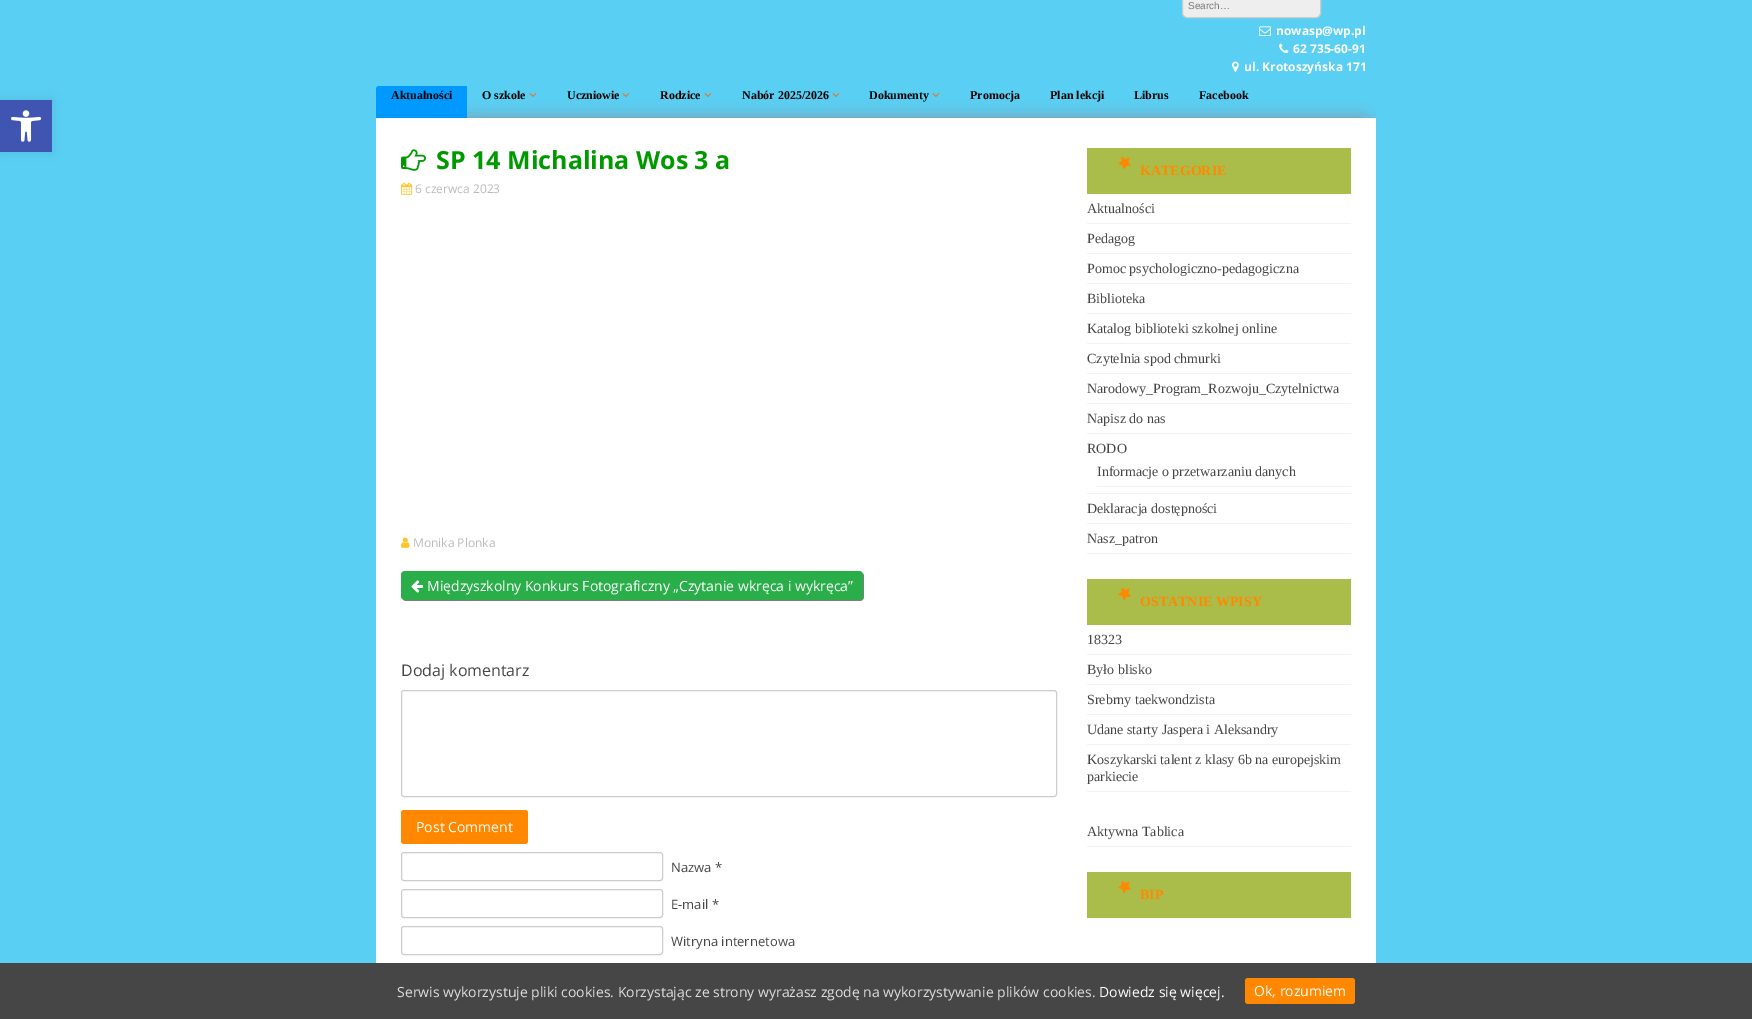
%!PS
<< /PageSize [1752 1019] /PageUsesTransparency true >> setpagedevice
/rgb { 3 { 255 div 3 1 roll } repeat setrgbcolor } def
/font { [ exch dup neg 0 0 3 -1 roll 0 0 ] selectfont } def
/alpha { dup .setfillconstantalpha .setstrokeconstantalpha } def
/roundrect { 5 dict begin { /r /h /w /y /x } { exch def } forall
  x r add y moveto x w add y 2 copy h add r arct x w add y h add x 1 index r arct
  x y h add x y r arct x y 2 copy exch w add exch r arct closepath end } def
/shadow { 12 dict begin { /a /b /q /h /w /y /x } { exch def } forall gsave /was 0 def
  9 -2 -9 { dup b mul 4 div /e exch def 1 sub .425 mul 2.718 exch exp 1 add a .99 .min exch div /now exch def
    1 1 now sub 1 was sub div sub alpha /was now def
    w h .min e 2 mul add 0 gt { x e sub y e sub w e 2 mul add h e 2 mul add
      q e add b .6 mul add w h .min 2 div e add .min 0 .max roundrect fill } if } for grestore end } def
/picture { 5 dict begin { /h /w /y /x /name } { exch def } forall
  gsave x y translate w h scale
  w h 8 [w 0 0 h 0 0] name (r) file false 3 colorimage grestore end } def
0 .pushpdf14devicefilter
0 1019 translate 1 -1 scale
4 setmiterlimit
89 207 244 rgb
0 0 1752 1019 rectfill
0 0 0 rgb
0 100 52 52 0 5 0.1 shadow
64 84 178 rgb
0 100 52 52 rectfill
(img/1.rgb) 11 110 30 32 picture
238 238 238 rgb
1182.5 -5.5 138 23 4.5 roundrect gsave fill grestore
204 204 204 rgb
stroke
(img/2.rgb) 1259 26 12 10 picture
(img/3.rgb) 1279 43 10 10 picture
(img/4.rgb) 1232 61 7 11 picture
gsave
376 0 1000 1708 rectclip
133 150 159 rgb
376 118 1000 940 15 8 1 shadow
grestore
0 153 255 rgb
379 86 moveto 467 86 lineto 467 118 lineto 376 118 lineto 376 89 lineto 376 87.5 377.5 86 379 86 curveto closepath fill
(img/5.rgb) 529 93 8 4 picture
(img/5.rgb) 622 93 8 4 picture
(img/5.rgb) 704 93 8 4 picture
(img/5.rgb) 832 93 8 4 picture
(img/5.rgb) 932 93 8 4 picture
255 255 255 rgb
376 118 1000 845 rectfill
(img/6.rgb) 401 149 25 22 picture
(img/7.rgb) 401 182 12 13 picture
(img/8.rgb) 401 537 9 11 picture
125 125 125 rgb
403 599 moveto 403 600 405 601 406 601 curveto 860 601 lineto 862 601 864 599 864 597 curveto 864 576 lineto 864 575 863 573 862 573 curveto 863 575 lineto 863 596 lineto 863 598 861 600 859 600 curveto 405 600 lineto closepath fill
42 174 74 rgb
401 571 462 29 4 roundrect fill
(img/9.rgb) 411 580 12 13 picture
204 204 204 rgb
401.5 690.5 655 106 2.5 roundrect stroke
255 136 0 rgb
401 810 127 34 3 roundrect fill
204 204 204 rgb
401.5 852.5 261 28 2.5 roundrect stroke
401.5 889.5 261 28 2.5 roundrect stroke
401.5 926.5 261 28 2.5 roundrect stroke
170 189 75 rgb
1087 148 264 46 rectfill
(img/10.rgb) 1118 156 13 14 picture
[
  [1087 223 264 1 242 242 242]
  [1087 253 264 1 242 242 242]
  [1087 283 264 1 242 242 242]
  [1087 313 264 1 242 242 242]
  [1087 343 264 1 242 242 242]
  [1087 373 264 1 242 242 242]
  [1087 403 264 1 242 242 242]
  [1087 433 264 1 242 242 242]
  [1087 493 264 1 242 242 242]
  [1097 486 254 1 242 242 242]
  [1087 523 264 1 242 242 242]
  [1087 553 264 1 242 242 242]
  [1087 579 264 46 170 189 75]
] { aload pop rgb rectfill } forall
(img/10.rgb) 1118 587 13 14 picture
[
  [1087 654 264 1 242 242 242]
  [1087 684 264 1 242 242 242]
  [1087 714 264 1 242 242 242]
  [1087 744 264 1 242 242 242]
  [1087 791 264 1 242 242 242]
  [1087 846 264 1 242 242 242]
  [1087 872 264 46 170 189 75]
] { aload pop rgb rectfill } forall
(img/10.rgb) 1118 880 13 14 picture
70 70 70 rgb
0 963 1752 56 rectfill
255 136 0 rgb
1245 978 110 26 3 roundrect fill
/LiberationSans-Regular 10 font
117 117 117 rgb
1188 9 moveto (Search…) show
/OpenSans-Bold 12 font
255 255 255 rgb
[
  [(nowasp@wp.pl) 1276 35]
  [(62 735-60-91) 1293 53]
  [(ul. Krotoszyńska 171) 1244 71]
] { aload pop moveto show } forall
/LiberationSerif-Bold 12 font
0 0 0 rgb
[
  [(Aktualności) 391 99]
  [(O szkole) 482 99]
  [(Uczniowie) 567 99]
  [(Rodzice) 660 99]
  [(Nabór 2025/2026) 742 99]
  [(Dokumenty) 869 99]
  [(Promocja) 970 99]
  [(Plan lekcji) 1050 99]
  [(Librus) 1134 99]
  [(Facebook) 1199 99]
] { aload pop moveto show } forall
/OpenSans-Bold 25 font
0 153 0 rgb
436 169 moveto (SP 14 Michalina Wos 3 a) show
/OpenSans-Regular 12 font
186 186 186 rgb
415 193 moveto (6 czerwca 2023) show
413 547 moveto (Monika Plonka) show
/OpenSans-Regular 14 font
255 255 255 rgb
427 591 moveto (Międzyszkolny Konkurs Fotograficzny „Czytanie wkręca i wykręca”) show
/OpenSans-Regular 16 font
68 69 69 rgb
401 676 moveto (Dodaj komentarz) show
/OpenSans-Regular 14 font
255 255 255 rgb
416 832 moveto (Post Comment) show
/OpenSans-Regular 13 font
68 69 69 rgb
[
  [(Nazwa *) 671 872]
  [(E-mail *) 671 909]
  [(Witryna internetowa) 671 946]
] { aload pop moveto show } forall
/LiberationSerif-Bold 14 font
255 136 0 rgb
1140 175 moveto (KATEGORIE) show
/LiberationSerif-Regular 14 font
68 69 69 rgb
[
  [(Aktualności) 1087 213]
  [(Pedagog) 1087 243]
  [(Pomoc psychologiczno-pedagogiczna) 1087 273]
  [(Biblioteka) 1087 303]
  [(Katalog biblioteki szkolnej online) 1087 333]
  [(Czytelnia spod chmurki) 1087 363]
  [(Narodowy_Program_Rozwoju_Czytelnictwa) 1087 393]
  [(Napisz do nas) 1087 423]
  [(RODO) 1087 453]
  [(Informacje o przetwarzaniu danych) 1097 476]
  [(Deklaracja dostępności) 1087 513]
  [(Nasz_patron) 1087 543]
] { aload pop moveto show } forall
/LiberationSerif-Bold 14 font
255 136 0 rgb
1140 606 moveto (OSTATNIE WPISY) show
/LiberationSerif-Regular 14 font
68 69 69 rgb
[
  [(18323) 1087 644]
  [(Było blisko) 1087 674]
  [(Srebrny taekwondzista) 1087 704]
  [(Udane starty Jaspera i Aleksandry) 1087 734]
  [(Koszykarski talent z klasy 6b na europejskim) 1087 764]
  [(parkiecie) 1087 781]
  [(Aktywna Tablica) 1087 836]
] { aload pop moveto show } forall
/LiberationSerif-Bold 14 font
255 136 0 rgb
1140 899 moveto (BIP) show
/OpenSans-Regular 14 font
221 221 221 rgb
397 997 moveto (Serwis wykorzystuje pliki cookies. Korzystając ze strony wyrażasz zgodę na wykorzystywanie plików cookies.) show
255 255 255 rgb
1099 997 moveto (Dowiedz się więcej.) show
1254 996 moveto (Ok, rozumiem) show
.poppdf14devicefilter showpage
